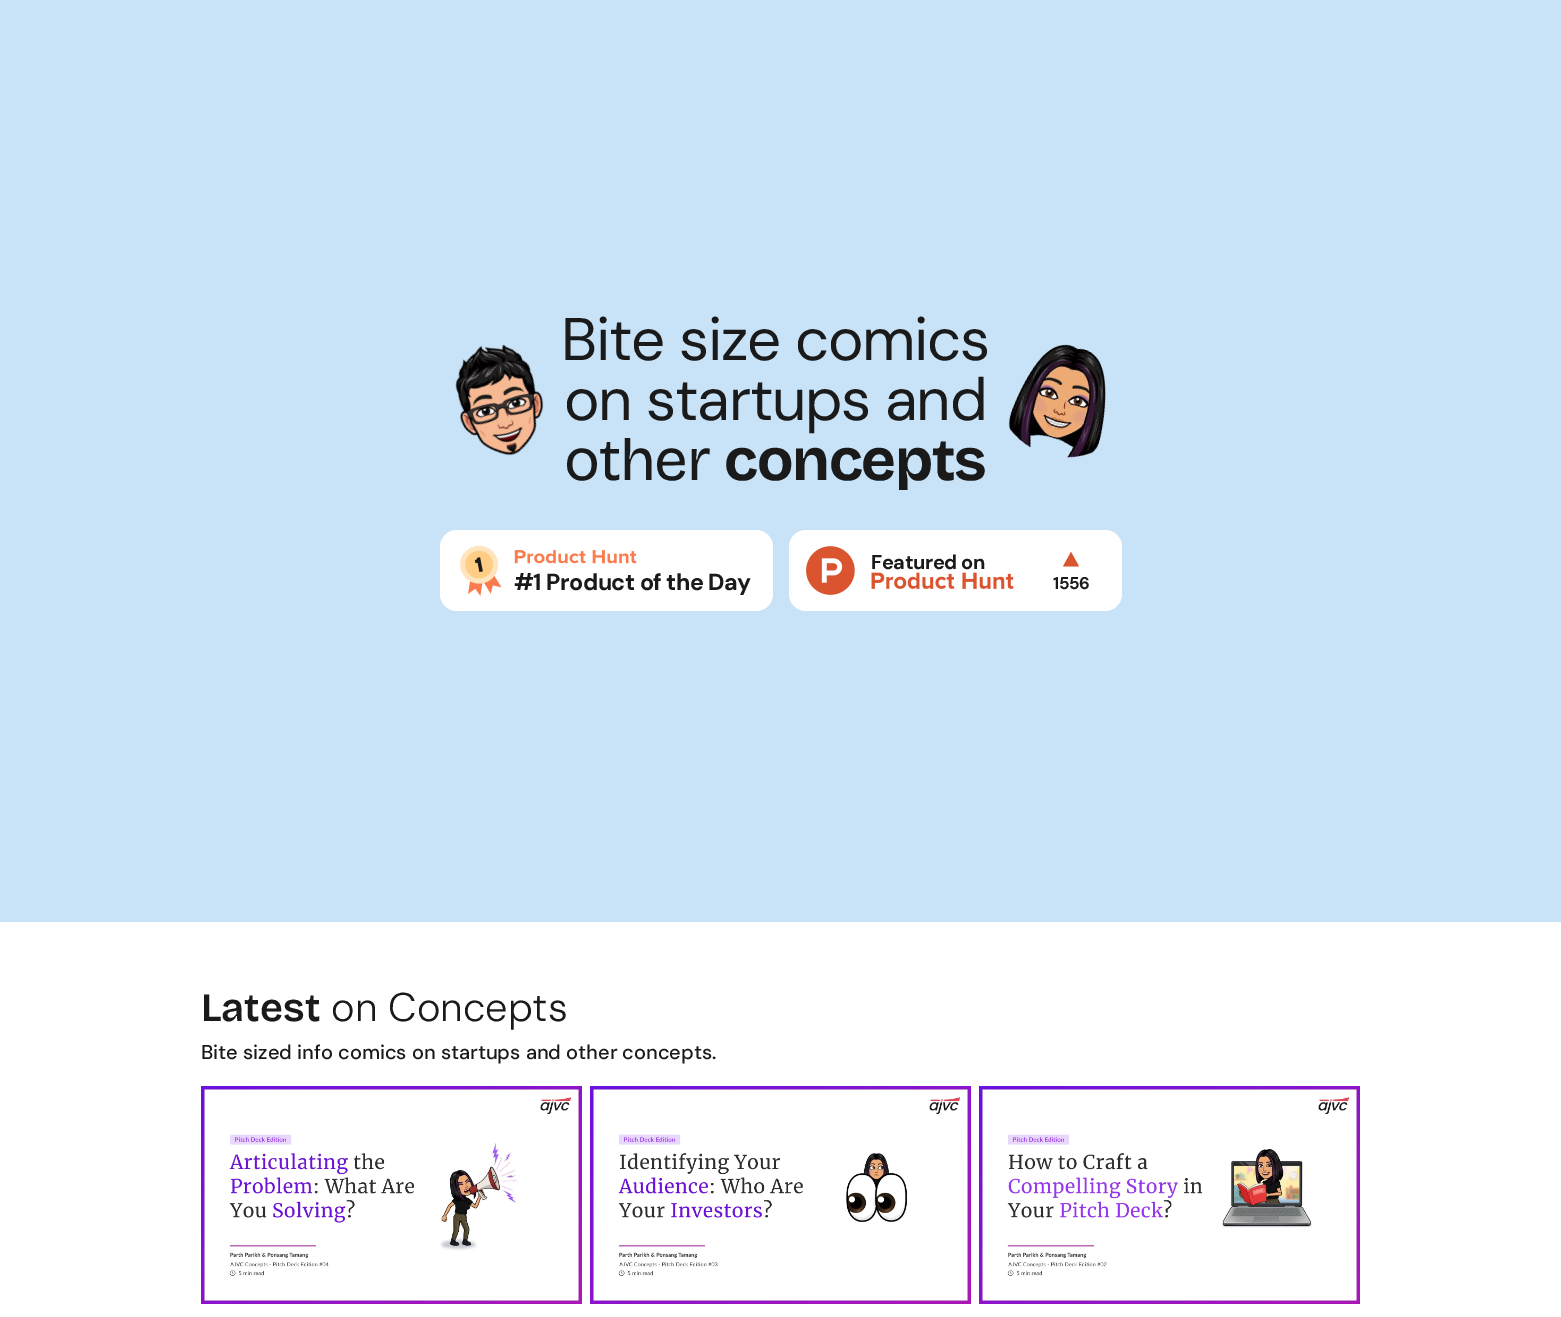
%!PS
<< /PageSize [1561 1317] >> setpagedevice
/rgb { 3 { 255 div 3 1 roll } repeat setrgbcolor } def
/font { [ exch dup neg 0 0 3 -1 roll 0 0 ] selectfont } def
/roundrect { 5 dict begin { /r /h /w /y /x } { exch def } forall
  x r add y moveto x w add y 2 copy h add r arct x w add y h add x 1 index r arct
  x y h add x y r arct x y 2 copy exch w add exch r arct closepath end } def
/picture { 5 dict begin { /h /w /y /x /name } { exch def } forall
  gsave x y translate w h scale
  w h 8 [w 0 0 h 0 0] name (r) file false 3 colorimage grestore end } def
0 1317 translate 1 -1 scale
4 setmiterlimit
255 255 255 rgb
0 0 1561 1317 rectfill
200 227 248 rgb
0 0 1561 922 rectfill
(img/1.rgb) 455 344 89 112 picture
(img/2.rgb) 1008 344 98 114 picture
255 255 255 rgb
440 530 333 81 17 roundrect fill
(img/3.rgb) 460 545 42 51 picture
(img/4.rgb) 514 550 123 14 picture
789 530 333 81 17 roundrect fill
(img/5.rgb) 806 546 49 49 picture
(img/6.rgb) 871 572 143 17 picture
218 85 47 rgb
1071 552 moveto 1063 566.5 lineto 1079 566.5 lineto closepath fill
(img/7.rgb) 201 1086 381 218 picture
(img/8.rgb) 590 1086 381 218 picture
(img/9.rgb) 979 1086 381 218 picture
/DMSans-Regular 60 font
26 26 26 rgb
561 360 moveto -1.25 0 (Bite size comics) ashow
564 420 moveto -1.25 0 (on startups and) ashow
/BricolageGrotesque-Regular 60 font
564 480 moveto -1.25 0 (other) ashow
/BricolageGrotesque-Bold 60 font
724 480 moveto -1.25 0 (concepts) ashow
/DMSans-Bold 23.25 font
514 590 moveto -0.5 0 (#1 Product of the Day) ashow
/DMSans-Bold 20 font
871 569 moveto -0.4 0 (Featured on) ashow
/DMSans-Bold 17 font
1053 589 moveto -0.5 0 (1556) ashow
/BricolageGrotesque-SemiBold 40 font
201 1021 moveto (Latest) show
/DMSans-Light 40 font
331 1021 moveto (on Concepts) show
/DMSans-Medium 20 font
201 1059 moveto (Bite sized info comics on startups and other concepts.) show
showpage
